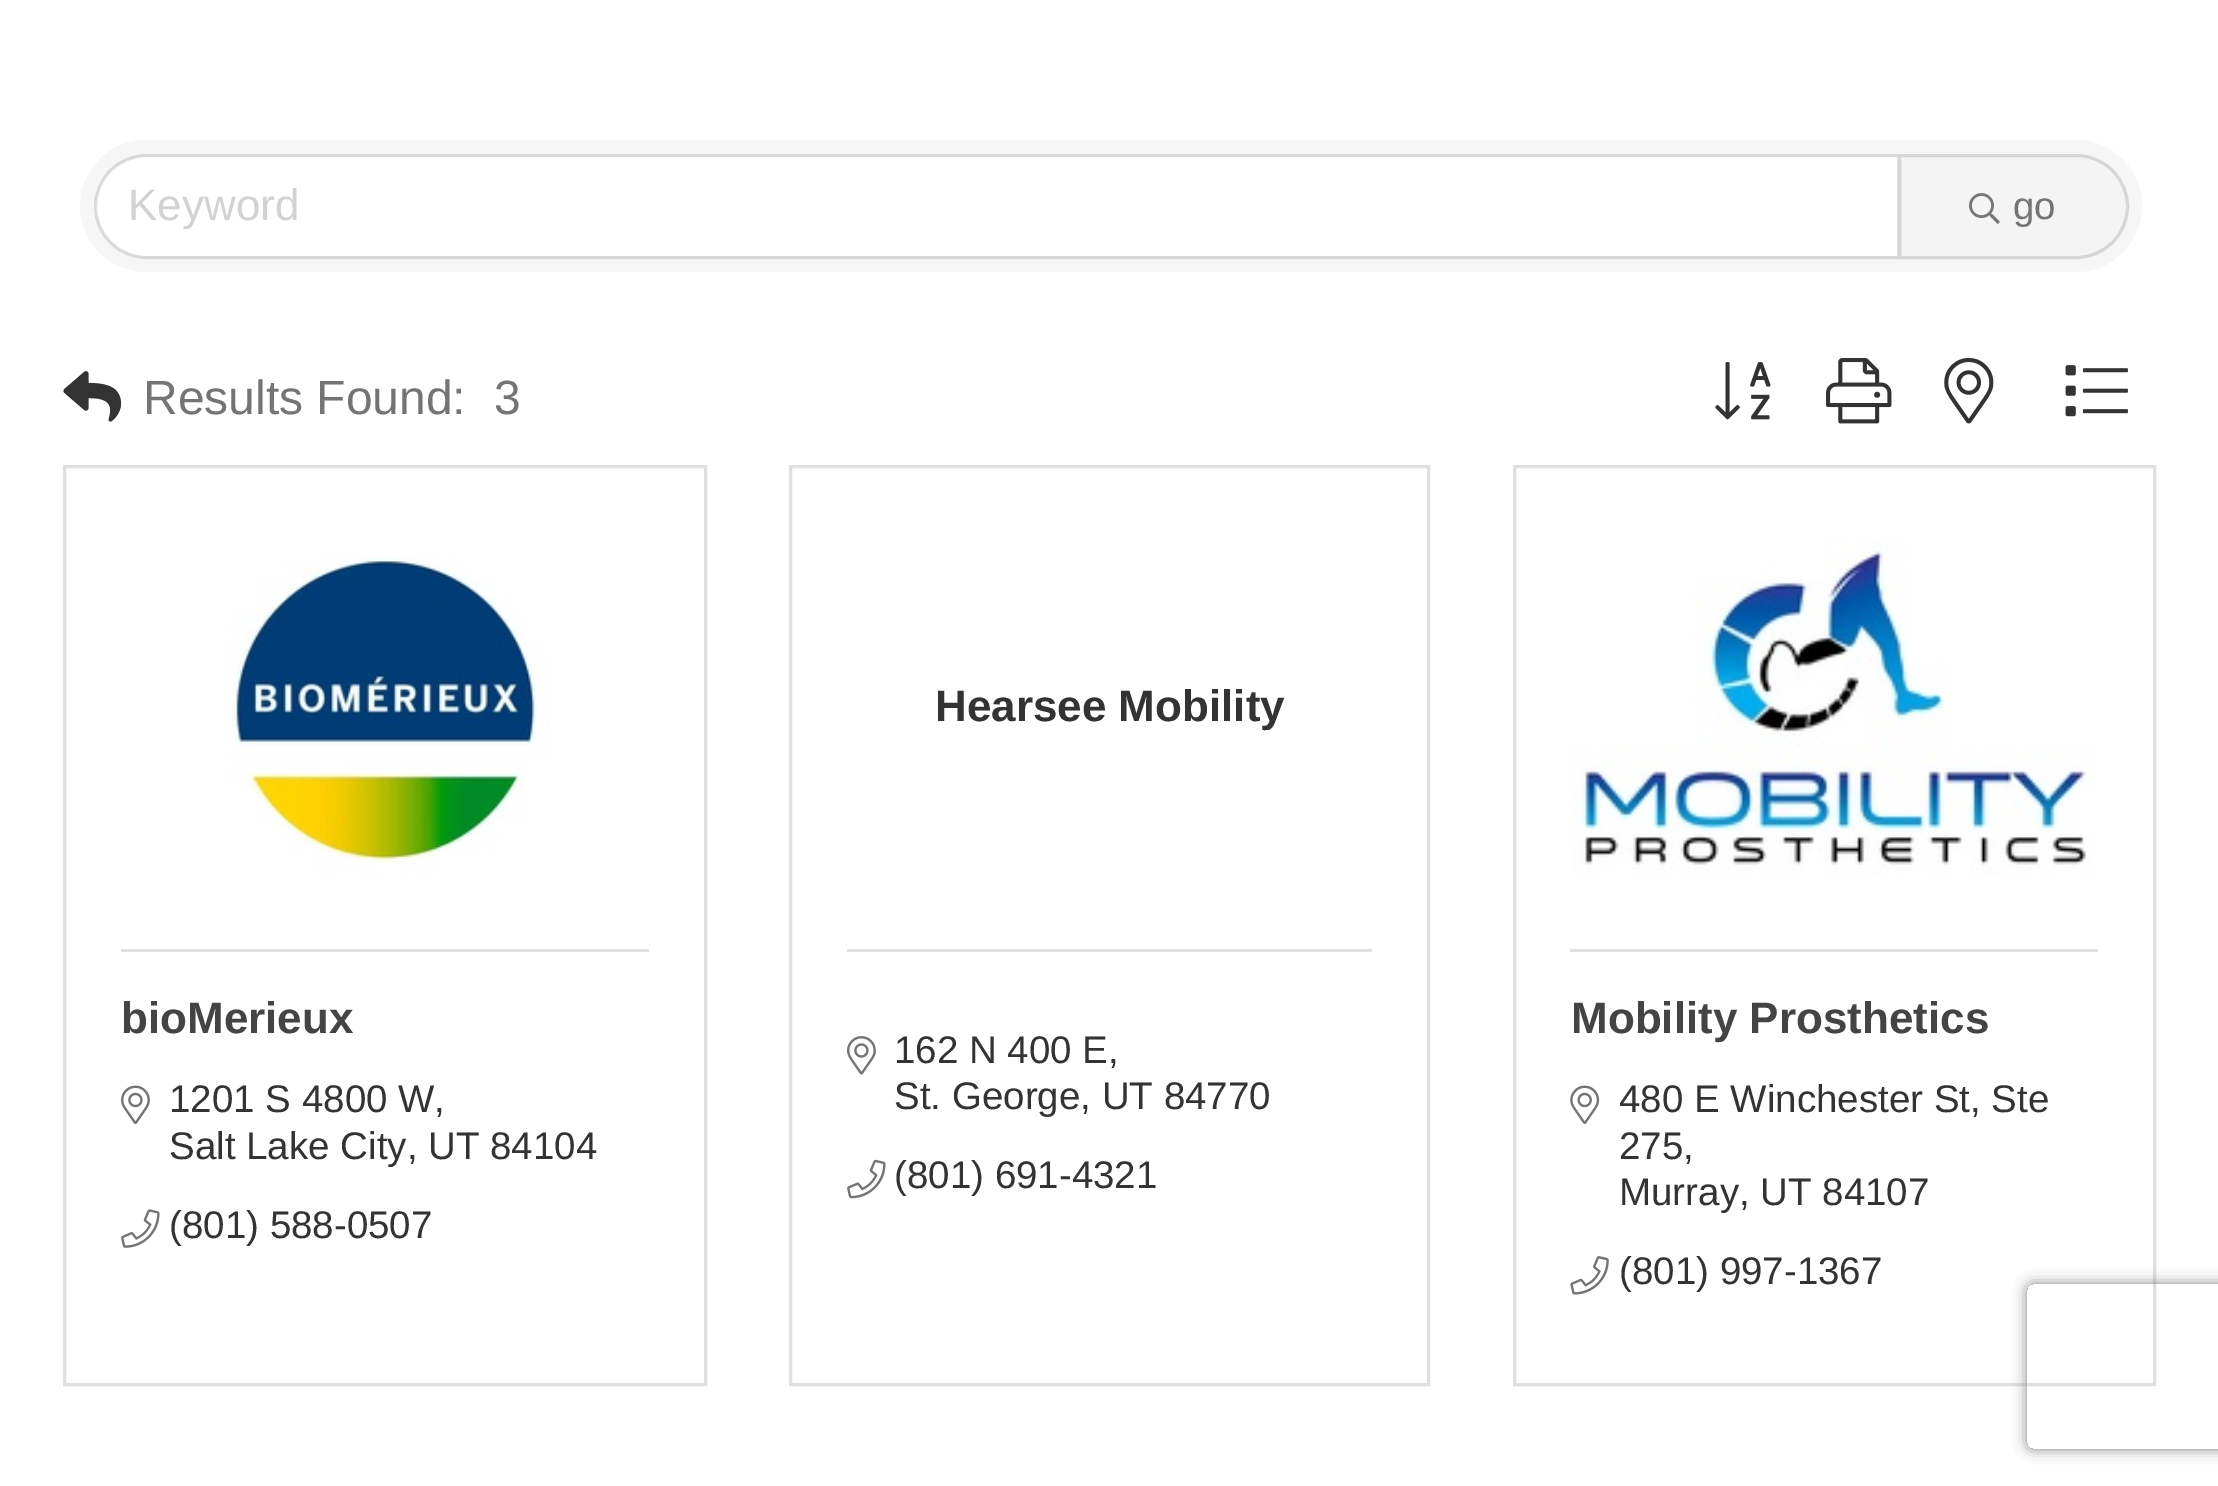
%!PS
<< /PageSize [2218 1486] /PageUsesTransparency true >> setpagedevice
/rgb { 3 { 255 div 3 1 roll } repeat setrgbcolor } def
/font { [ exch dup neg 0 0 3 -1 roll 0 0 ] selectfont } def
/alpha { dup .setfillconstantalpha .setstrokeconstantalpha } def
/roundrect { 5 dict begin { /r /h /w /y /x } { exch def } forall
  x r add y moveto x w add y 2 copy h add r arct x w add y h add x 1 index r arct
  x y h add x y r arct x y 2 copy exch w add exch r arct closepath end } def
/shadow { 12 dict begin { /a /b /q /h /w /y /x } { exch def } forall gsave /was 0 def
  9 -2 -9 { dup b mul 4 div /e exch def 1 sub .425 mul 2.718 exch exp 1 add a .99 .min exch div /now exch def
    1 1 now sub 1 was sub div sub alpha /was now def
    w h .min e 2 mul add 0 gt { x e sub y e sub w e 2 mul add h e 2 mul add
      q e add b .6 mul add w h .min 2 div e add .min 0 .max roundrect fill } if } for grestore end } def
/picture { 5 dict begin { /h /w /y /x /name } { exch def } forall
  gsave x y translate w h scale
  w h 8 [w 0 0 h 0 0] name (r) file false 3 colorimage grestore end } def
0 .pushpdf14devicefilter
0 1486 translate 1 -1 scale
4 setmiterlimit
255 255 255 rgb
0 0 2218 1486 rectfill
246 246 246 rgb
80 140 2062 132 66 roundrect fill
255 255 255 rgb
145.5 157 moveto 1898 157 lineto 1898 256 lineto 145.5 256 lineto 118 256 96 234 96 206.5 curveto 96 179 118 157 145.5 157 curveto closepath fill
0.12 alpha
0 0 0 rgb
3 setlinewidth
146.5 155.5 moveto 1898.5 155.5 lineto 1898.5 257.5 lineto 146.5 257.5 lineto 118.5 257.5 95.5 234.5 95.5 206.5 curveto 95.5 178.5 118.5 155.5 146.5 155.5 curveto closepath stroke
1 alpha
244 244 244 rgb
1899.5 155.5 moveto 2076.5 155.5 lineto 2104.5 155.5 2127.5 178.5 2127.5 206.5 curveto 2127.5 234.5 2104.5 257.5 2076.5 257.5 curveto 1899.5 257.5 lineto closepath gsave fill grestore
214 214 214 rgb
stroke
(img/1.rgb) 1969 193 31 31 picture
(img/2.rgb) 63 371 59 51 picture
(img/3.rgb) 1715 362 56 58 picture
(img/4.rgb) 1826 358 66 66 picture
(img/5.rgb) 1944 358 50 66 picture
(img/6.rgb) 2065 365 63 52 picture
223 223 223 rgb
64.5 466.5 641 918 rectstroke
(img/7.rgb) 230 557 320 317 picture
121 949 528 3 rectfill
(img/8.rgb) 121 1085 29 39 picture
(img/9.rgb) 121 1209 39 39 picture
790.5 466.5 638 918 rectstroke
847 949 525 3 rectfill
(img/10.rgb) 847 1036 29 39 picture
(img/11.rgb) 847 1159 39 40 picture
1514.5 466.5 640 918 rectstroke
(img/12.rgb) 1570 539 526 335 picture
1570 949 528 3 rectfill
(img/13.rgb) 1570 1085 30 39 picture
(img/14.rgb) 1570 1256 39 39 picture
gsave
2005 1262 moveto 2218 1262 lineto 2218 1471 lineto 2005 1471 lineto closepath 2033 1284 moveto 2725 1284 lineto 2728.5 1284 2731 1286.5 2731 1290 curveto 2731 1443 lineto 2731 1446.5 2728.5 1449 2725 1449 curveto 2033 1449 lineto 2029.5 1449 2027 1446.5 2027 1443 curveto 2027 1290 lineto 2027 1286.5 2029.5 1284 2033 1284 curveto closepath eoclip newpath
128 128 128 rgb
2027 1284 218 165 6 7 1 shadow
grestore
/LiberationSans-Regular 44 font
210 210 210 rgb
128 220 moveto (Keyword) show
/LiberationSans-Regular 38.5 font
116 116 116 rgb
2013 219 moveto (go) show
/LiberationSans-Regular 48 font
143 414 moveto (Results Found:) show
494 414 moveto (3) show
/LiberationSans-Bold 44 font
68 68 68 rgb
121 1033 moveto (bioMerieux) show
/LiberationSans-Regular 38.5 font
51 51 51 rgb
[
  [(1201 S 4800 W,) 169 1112]
  [(Salt Lake City, UT 84104) 169 1159]
  [(\(801\) 588-0507) 169 1238]
] { aload pop moveto show } forall
/LiberationSans-Bold 44 font
935 721 moveto (Hearsee Mobility) show
/LiberationSans-Regular 38.5 font
[
  [(162 N 400 E,) 894 1063]
  [(St. George, UT 84770) 894 1109]
  [(\(801\) 691-4321) 894 1188]
] { aload pop moveto show } forall
/LiberationSans-Bold 44 font
68 68 68 rgb
1571 1033 moveto (Mobility Prosthetics) show
/LiberationSans-Regular 38.5 font
51 51 51 rgb
[
  [(480 E Winchester St, Ste) 1619 1112]
  [(275,) 1619 1159]
  [(Murray, UT 84107) 1619 1205]
  [(\(801\) 997-1367) 1619 1284]
] { aload pop moveto show } forall
.poppdf14devicefilter showpage
